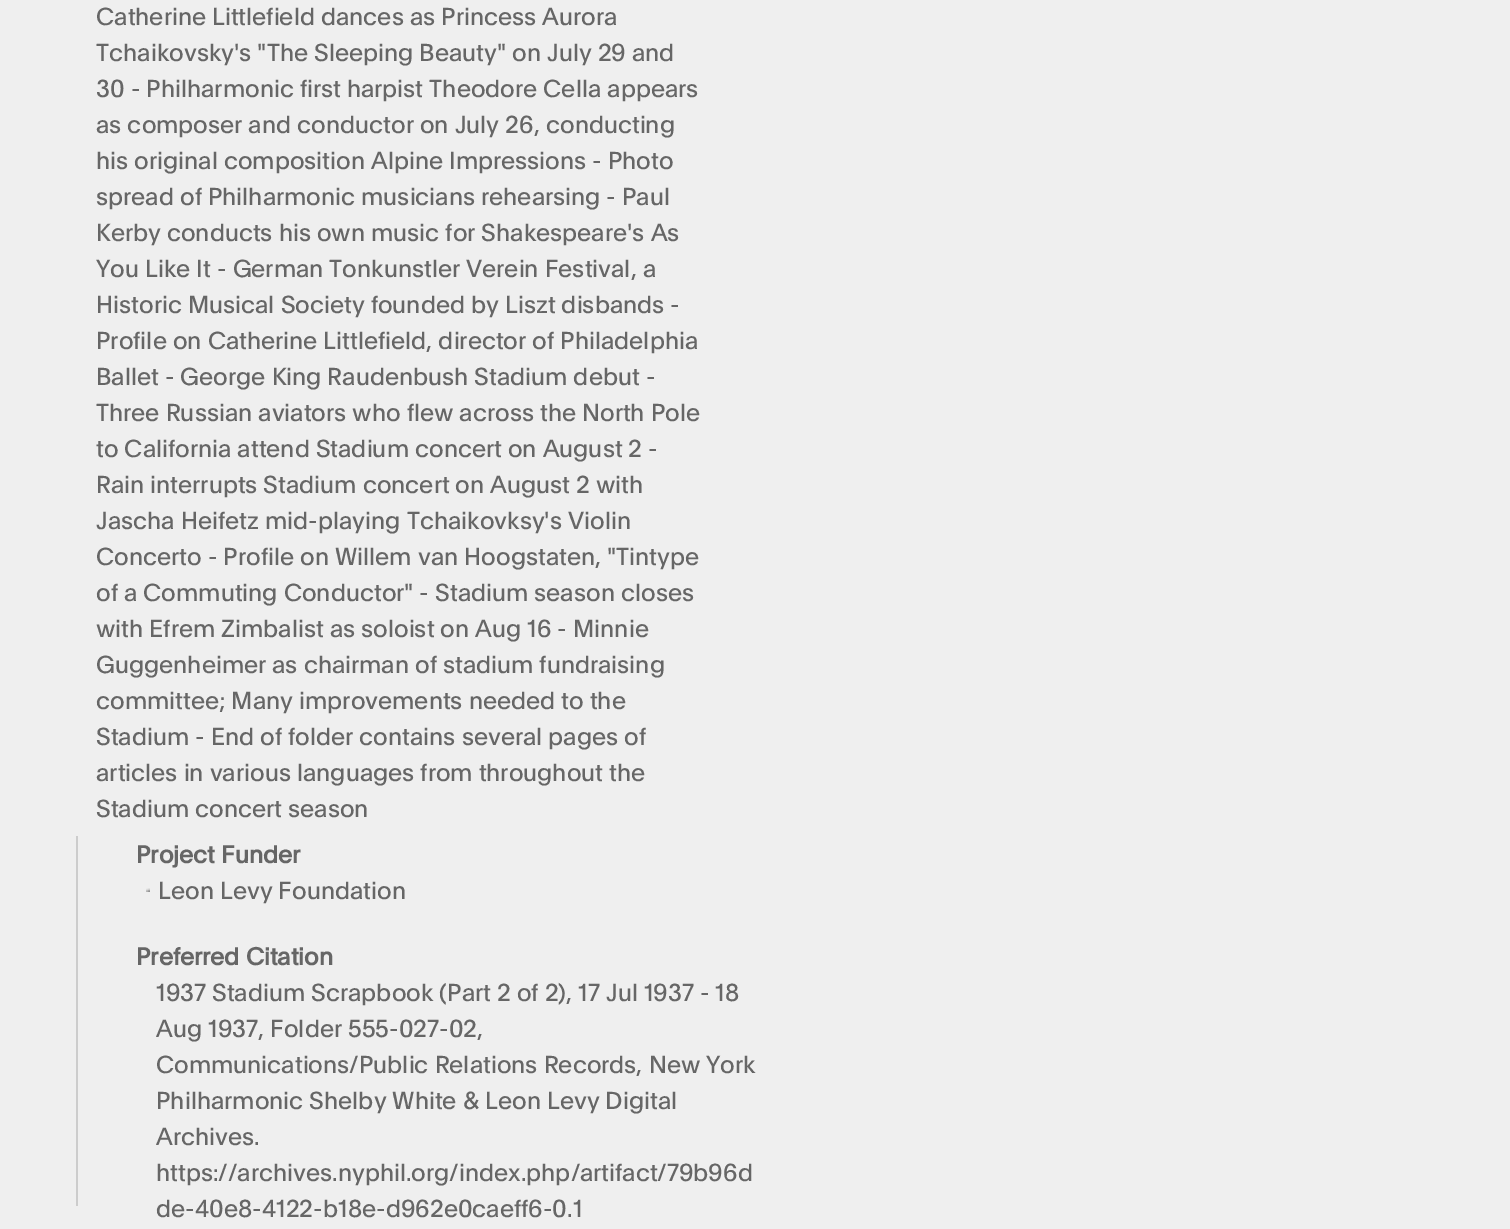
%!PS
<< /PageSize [1510 1229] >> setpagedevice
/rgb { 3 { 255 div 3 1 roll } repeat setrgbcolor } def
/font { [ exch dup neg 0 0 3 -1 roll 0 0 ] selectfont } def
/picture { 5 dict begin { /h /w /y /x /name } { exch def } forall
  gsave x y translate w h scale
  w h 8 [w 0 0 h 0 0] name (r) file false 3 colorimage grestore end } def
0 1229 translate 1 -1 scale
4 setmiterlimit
239 239 239 rgb
0 0 1510 1229 rectfill
204 204 204 rgb
76 836 2 370 rectfill
(img/1.rgb) 146 888 4 4 picture
/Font-Regular 24 font
102 102 102 rgb
[
  [(Catherine Littlefield dances as Princess Aurora) 96 25]
  [(Tchaikovsky's "The Sleeping Beauty" on July 29 and) 96 61]
  [(30 - Philharmonic first harpist Theodore Cella appears) 96 97]
  [(as composer and conductor on July 26, conducting) 96 133]
  [(his original composition Alpine Impressions - Photo) 96 169]
  [(spread of Philharmonic musicians rehearsing - Paul) 96 205]
  [(Kerby conducts his own music for Shakespeare's As) 96 241]
  [(You Like It - German Tonkunstler Verein Festival, a) 96 277]
  [(Historic Musical Society founded by Liszt disbands -) 96 313]
  [(Profile on Catherine Littlefield, director of Philadelphia) 96 349]
  [(Ballet - George King Raudenbush Stadium debut -) 96 385]
  [(Three Russian aviators who flew across the North Pole) 96 421]
  [(to California attend Stadium concert on August 2 -) 96 457]
  [(Rain interrupts Stadium concert on August 2 with) 96 493]
  [(Jascha Heifetz mid-playing Tchaikovksy's Violin) 96 529]
  [(Concerto - Profile on Willem van Hoogstaten, "Tintype) 96 565]
  [(of a Commuting Conductor" - Stadium season closes) 96 601]
  [(with Efrem Zimbalist as soloist on Aug 16 - Minnie) 96 637]
  [(Guggenheimer as chairman of stadium fundraising) 96 673]
  [(committee; Many improvements needed to the) 96 709]
  [(Stadium - End of folder contains several pages of) 96 745]
  [(articles in various languages from throughout the) 96 781]
  [(Stadium concert season) 96 817]
] { aload pop moveto show } forall
/Font-Bold 24 font
136 863 moveto (Project Funder) show
/Font-Regular 24 font
158 899 moveto (Leon Levy Foundation) show
/Font-Bold 24 font
136 965 moveto (Preferred Citation) show
/Font-Regular 24 font
[
  [(1937 Stadium Scrapbook \(Part 2 of 2\), 17 Jul 1937 - 18) 156 1001]
  [(Aug 1937, Folder 555-027-02,) 156 1037]
  [(Communications/Public Relations Records, New York) 156 1073]
  [(Philharmonic Shelby White & Leon Levy Digital) 156 1109]
  [(Archives.) 156 1145]
  [(https://archives.nyphil.org/index.php/artifact/79b96d) 156 1181]
  [(de-40e8-4122-b18e-d962e0caeff6-0.1) 156 1217]
] { aload pop moveto show } forall
showpage
